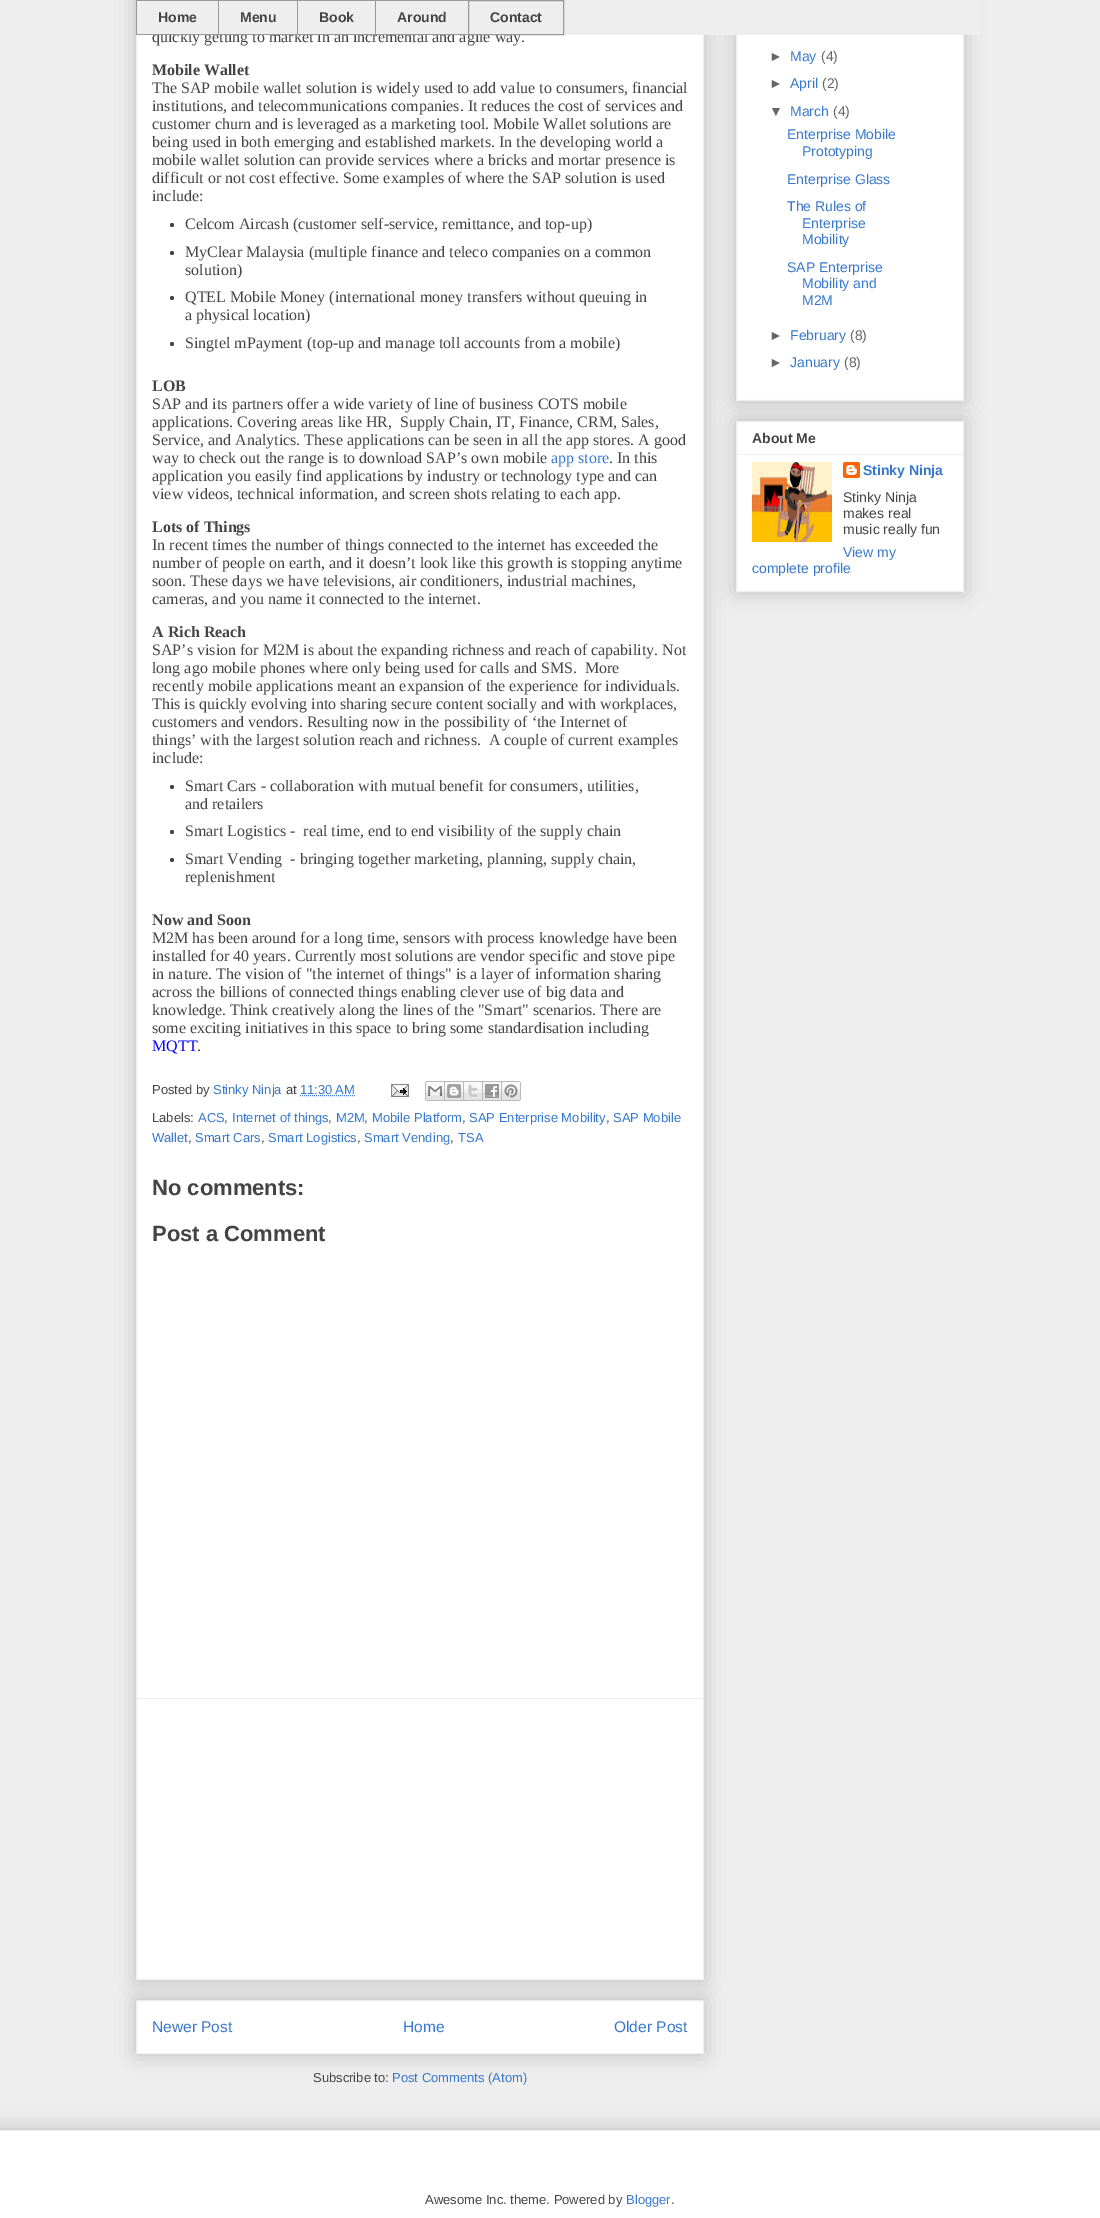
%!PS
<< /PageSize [1100 2218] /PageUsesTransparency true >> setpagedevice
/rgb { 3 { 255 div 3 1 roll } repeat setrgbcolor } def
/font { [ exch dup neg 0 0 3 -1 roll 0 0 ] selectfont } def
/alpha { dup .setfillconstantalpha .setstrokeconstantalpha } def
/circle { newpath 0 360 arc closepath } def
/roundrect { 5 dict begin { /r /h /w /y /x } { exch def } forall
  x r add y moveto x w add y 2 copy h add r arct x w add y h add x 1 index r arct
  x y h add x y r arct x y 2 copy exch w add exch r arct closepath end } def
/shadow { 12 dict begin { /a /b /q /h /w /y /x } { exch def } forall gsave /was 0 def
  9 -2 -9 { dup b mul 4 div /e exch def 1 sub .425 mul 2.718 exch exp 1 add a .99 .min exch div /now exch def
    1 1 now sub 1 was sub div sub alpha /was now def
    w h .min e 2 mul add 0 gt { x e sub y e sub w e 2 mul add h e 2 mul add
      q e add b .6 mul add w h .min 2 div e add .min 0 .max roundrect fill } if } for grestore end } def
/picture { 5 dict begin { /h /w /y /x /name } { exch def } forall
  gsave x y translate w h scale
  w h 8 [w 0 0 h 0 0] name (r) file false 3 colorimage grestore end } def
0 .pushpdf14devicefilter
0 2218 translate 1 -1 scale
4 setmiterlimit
238 238 238 rgb
0 0 1100 2218 rectfill
0 0 0 rgb
136 2000 568 54 0 10 0.2 shadow
255 255 255 rgb
136.5 2000.5 moveto 703.5 2000.5 lineto 703.5 2053.5 lineto 136.5 2053.5 lineto closepath gsave fill grestore
238 238 238 rgb
stroke
0 0 0 rgb
136 -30 568 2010 0 10 0.2 shadow
255 255 255 rgb
137 35 566 1944 rectfill
238 238 238 rgb
136.5 -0.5 567 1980 rectstroke
68 68 68 rgb
172 225 2 circle fill
172 253 2 circle fill
172 298 2 circle fill
172 344 2 circle fill
172 787 2 circle fill
172 832 2 circle fill
172 860 2 circle fill
55 120 205 rgb
[1 1] 0 setdash
300 1095.5 moveto 355 1095.5 lineto stroke
(img/1.rgb) 391 1084 18 13 picture
(img/2.rgb) 425 1081 20 20 picture
(img/3.rgb) 445 1081 19 20 picture
(img/4.rgb) 464 1081 19 20 picture
(img/5.rgb) 483 1081 19 20 picture
(img/6.rgb) 502 1081 19 20 picture
238 238 238 rgb
137 1698 566 1 rectfill
0 0 0 rgb
736 -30 228 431 0 10 0.2 shadow
255 255 255 rgb
737 35 226 365 rectfill
238 238 238 rgb
[] 0 setdash
736.5 -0.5 227 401 rectstroke
0 0 0 rgb
736 421 228 171 0 10 0.2 shadow
255 255 255 rgb
736.5 421.5 moveto 963.5 421.5 lineto 963.5 591.5 lineto 736.5 591.5 lineto closepath gsave fill grestore
238 238 238 rgb
stroke
737 454 226 1 rectfill
(img/7.rgb) 752 462 80 80 picture
(img/8.rgb) 843 462 17 16 picture
0 0 0 rgb
-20 2130 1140 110 0 10 0.2 shadow
255 255 255 rgb
0 2131 1100 87 rectfill
238 238 238 rgb
0 2130 1100 1 rectfill
/LiberationSerif-Regular 16 font
68 68 68 rgb
152 42 moveto (quickly getting to market in an incremental and agile way.) show
238 238 238 rgb
137 0 843 35 rectfill
153 153 153 rgb
468.5 0.5 95 34 rectstroke
/LiberationSans-Bold 14 font
68 68 68 rgb
490 22 moveto (Contact) show
397 22 moveto (Around) show
[
  [136 34 332 1 153 153 153]
  [136 0 332 1 153 153 153]
  [375 0 1 35 153 153 153]
] { aload pop rgb rectfill } forall
68 68 68 rgb
319 22 moveto (Book) show
153 153 153 rgb
297 0 1 35 rectfill
68 68 68 rgb
240 22 moveto (Menu) show
153 153 153 rgb
218 0 1 35 rectfill
68 68 68 rgb
158 22 moveto (Home) show
153 153 153 rgb
136 0 1 35 rectfill
/LiberationSerif-Bold 16 font
68 68 68 rgb
152 75 moveto (Mobile Wallet) show
/LiberationSerif-Regular 16 font
[
  [(The SAP mobile wallet solution is widely used to add value to consumers, financial) 152 93]
  [(institutions, and telecommunications companies. It reduces the cost of services and) 152 111]
  [(customer churn and is leveraged as a marketing tool. Mobile Wallet solutions are) 152 129]
  [(being used in both emerging and established markets. In the developing world a) 152 147]
  [(mobile wallet solution can provide services where a bricks and mortar presence is) 152 165]
  [(difficult or not cost effective. Some examples of where the SAP solution is used) 152 183]
  [(include:) 152 201]
  [(Celcom Aircash \(customer self-service, remittance, and top-up\)) 185 229]
  [(MyClear Malaysia \(multiple finance and teleco companies on a common) 185 257]
  [(solution\)) 185 275]
  [(QTEL Mobile Money \(international money transfers without queuing in) 185 302]
  [(a physical location\)) 185 320]
  [(Singtel mPayment \(top-up and manage toll accounts from a mobile\)) 185 348]
] { aload pop moveto show } forall
/LiberationSerif-Bold 16 font
152 391 moveto (LOB) show
/LiberationSerif-Regular 16 font
[
  [(SAP and its partners offer a wide variety of line of business COTS mobile) 152 409]
  [(applications. Covering areas like HR,  Supply Chain, IT, Finance, CRM, Sales,) 152 427]
  [(Service, and Analytics. These applications can be seen in all the app stores. A good) 152 445]
  [(way to check out the range is to download SAP’s own mobile) 152 463]
] { aload pop moveto show } forall
55 120 205 rgb
551 463 moveto (app store) show
68 68 68 rgb
[
  [(. In this) 609 463]
  [(application you easily find applications by industry or technology type and can) 152 481]
  [(view videos, technical information, and screen shots relating to each app.) 152 499]
] { aload pop moveto show } forall
/LiberationSerif-Bold 16 font
152 532 moveto (Lots of Things) show
/LiberationSerif-Regular 16 font
[
  [(In recent times the number of things connected to the internet has exceeded the) 152 550]
  [(number of people on earth, and it doesn’t look like this growth is stopping anytime) 152 568]
  [(soon. These days we have televisions, air conditioners, industrial machines,) 152 586]
  [(cameras, and you name it connected to the internet.) 152 604]
] { aload pop moveto show } forall
/LiberationSerif-Bold 16 font
152 637 moveto (A Rich Reach) show
/LiberationSerif-Regular 16 font
[
  [(SAP’s vision for M2M is about the expanding richness and reach of capability. Not) 152 655]
  [(long ago mobile phones where only being used for calls and SMS.  More) 152 673]
  [(recently mobile applications meant an expansion of the experience for individuals.) 152 691]
  [(This is quickly evolving into sharing secure content socially and with workplaces,) 152 709]
  [(customers and vendors. Resulting now in the possibility of ‘the Internet of) 152 727]
  [(things’ with the largest solution reach and richness.  A couple of current examples) 152 745]
  [(include:) 152 763]
  [(Smart Cars - collaboration with mutual benefit for consumers, utilities,) 185 791]
  [(and retailers) 185 809]
  [(Smart Logistics -  real time, end to end visibility of the supply chain) 185 836]
  [(Smart Vending  - bringing together marketing, planning, supply chain,) 185 864]
  [(replenishment) 185 882]
] { aload pop moveto show } forall
/LiberationSerif-Bold 16 font
152 925 moveto (Now and Soon) show
/LiberationSerif-Regular 16 font
[
  [(M2M has been around for a long time, sensors with process knowledge have been) 152 943]
  [(installed for 40 years. Currently most solutions are vendor specific and stove pipe) 152 961]
  [(in nature. The vision of "the internet of things" is a layer of information sharing) 152 979]
  [(across the billions of connected things enabling clever use of big data and) 152 997]
  [(knowledge. Think creatively along the lines of the "Smart" scenarios. There are) 152 1015]
  [(some exciting initiatives in this space to bring some standardisation including) 152 1033]
] { aload pop moveto show } forall
0 0 255 rgb
152 1051 moveto (MQTT) show
68 68 68 rgb
197 1051 moveto (.) show
/LiberationSans-Regular 13 font
152 1094 moveto (Posted by) show
55 120 205 rgb
213 1094 moveto (Stinky Ninja) show
68 68 68 rgb
286 1094 moveto (at) show
55 120 205 rgb
300 1094 moveto (11:30 AM) show
68 68 68 rgb
152 1122 moveto (Labels:) show
55 120 205 rgb
198 1122 moveto (ACS) show
68 68 68 rgb
224 1122 moveto (,) show
55 120 205 rgb
232 1122 moveto (Internet of things) show
68 68 68 rgb
328 1122 moveto (,) show
55 120 205 rgb
336 1122 moveto (M2M) show
68 68 68 rgb
364 1122 moveto (,) show
55 120 205 rgb
372 1122 moveto (Mobile Platform) show
68 68 68 rgb
462 1122 moveto (,) show
55 120 205 rgb
469 1122 moveto (SAP Enterprise Mobility) show
68 68 68 rgb
606 1122 moveto (,) show
55 120 205 rgb
613 1122 moveto (SAP Mobile) show
152 1142 moveto (Wallet) show
68 68 68 rgb
188 1142 moveto (,) show
55 120 205 rgb
195 1142 moveto (Smart Cars) show
68 68 68 rgb
261 1142 moveto (,) show
55 120 205 rgb
268 1142 moveto (Smart Logistics) show
68 68 68 rgb
357 1142 moveto (,) show
55 120 205 rgb
364 1142 moveto (Smart Vending) show
68 68 68 rgb
450 1142 moveto (,) show
55 120 205 rgb
458 1142 moveto (TSA) show
/LiberationSans-Bold 22 font
68 68 68 rgb
152 1195 moveto (No comments:) show
152 1241 moveto (Post a Comment) show
/LiberationSans-Regular 15.5 font
55 120 205 rgb
[
  [(Newer Post) 152 2032]
  [(Home) 403 2032]
  [(Older Post) 614 2032]
] { aload pop moveto show } forall
/LiberationSans-Regular 13 font
68 68 68 rgb
313 2082 moveto (Subscribe to:) show
55 120 205 rgb
392 2082 moveto (Post Comments \(Atom\)) show
/LiberationSans-Regular 14 font
102 102 102 rgb
769 61 moveto (►) show
55 120 205 rgb
790 61 moveto (May) show
102 102 102 rgb
821 61 moveto (\(4\)) show
769 88 moveto (►) show
55 120 205 rgb
790 88 moveto (April) show
102 102 102 rgb
822 88 moveto (\(2\)) show
769 116 moveto (▼) show
55 120 205 rgb
790 116 moveto (March) show
102 102 102 rgb
833 116 moveto (\(4\)) show
55 120 205 rgb
[
  [(Enterprise Mobile) 787 139]
  [(Prototyping) 802 156]
  [(Enterprise Glass) 787 184]
  [(The Rules of) 787 211]
  [(Enterprise) 802 228]
  [(Mobility) 802 244]
  [(SAP Enterprise) 787 272]
  [(Mobility and) 802 288]
  [(M2M) 802 305]
] { aload pop moveto show } forall
102 102 102 rgb
769 340 moveto (►) show
55 120 205 rgb
790 340 moveto (February) show
102 102 102 rgb
850 340 moveto (\(8\)) show
769 367 moveto (►) show
55 120 205 rgb
790 367 moveto (January) show
102 102 102 rgb
844 367 moveto (\(8\)) show
/LiberationSans-Bold 14 font
68 68 68 rgb
752 443 moveto (About Me) show
55 120 205 rgb
863 475 moveto (Stinky Ninja) show
/LiberationSans-Regular 14 font
68 68 68 rgb
[
  [(Stinky Ninja) 843 502]
  [(makes real) 843 518]
  [(music really fun) 843 534]
] { aload pop moveto show } forall
55 120 205 rgb
843 557 moveto (View my) show
752 573 moveto (complete profile) show
/LiberationSans-Regular 13 font
68 68 68 rgb
425 2204 moveto (Awesome Inc. theme. Powered by) show
55 120 205 rgb
626 2204 moveto (Blogger) show
68 68 68 rgb
671 2204 moveto (.) show
.poppdf14devicefilter showpage
